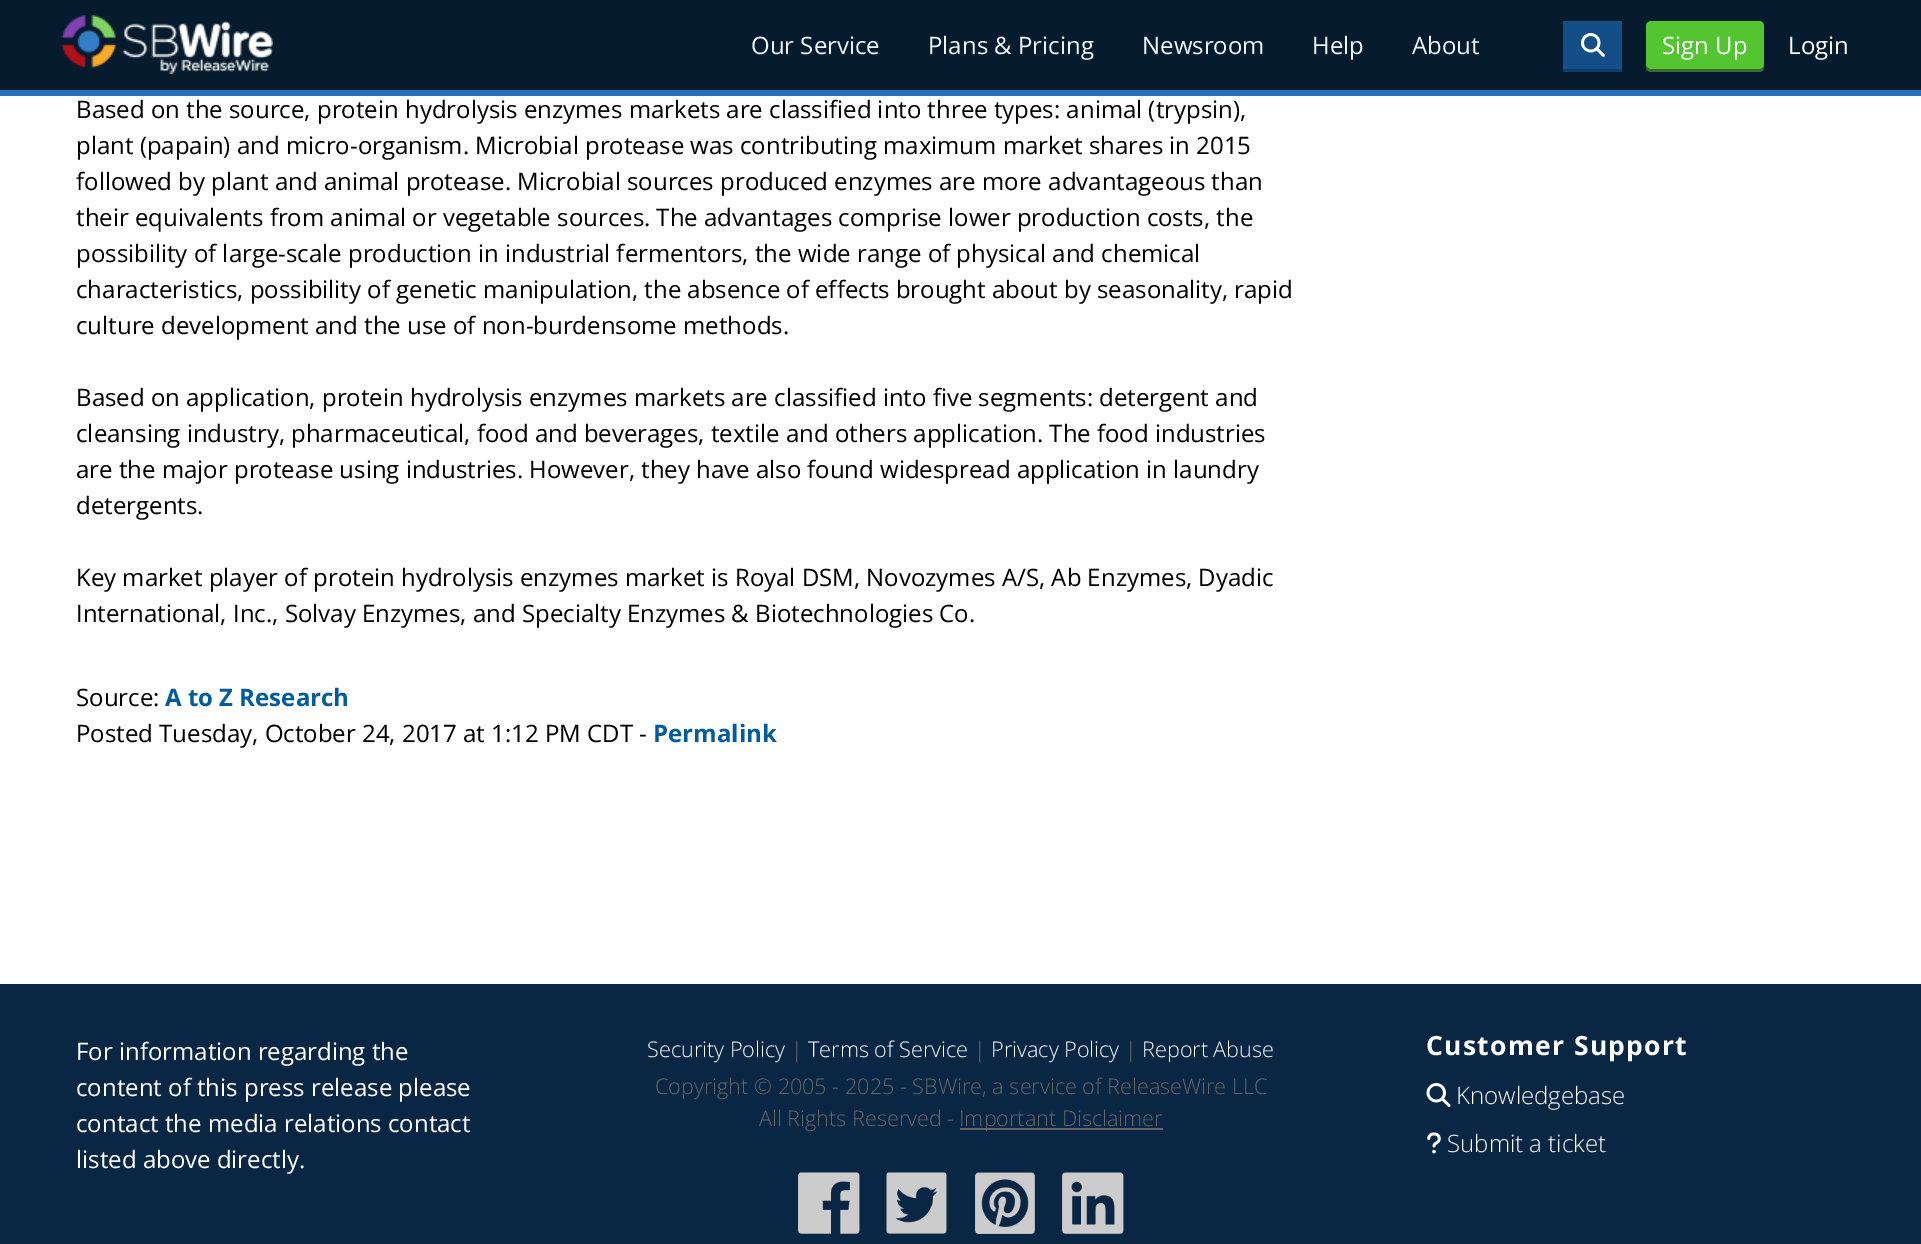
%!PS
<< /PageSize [1921 1244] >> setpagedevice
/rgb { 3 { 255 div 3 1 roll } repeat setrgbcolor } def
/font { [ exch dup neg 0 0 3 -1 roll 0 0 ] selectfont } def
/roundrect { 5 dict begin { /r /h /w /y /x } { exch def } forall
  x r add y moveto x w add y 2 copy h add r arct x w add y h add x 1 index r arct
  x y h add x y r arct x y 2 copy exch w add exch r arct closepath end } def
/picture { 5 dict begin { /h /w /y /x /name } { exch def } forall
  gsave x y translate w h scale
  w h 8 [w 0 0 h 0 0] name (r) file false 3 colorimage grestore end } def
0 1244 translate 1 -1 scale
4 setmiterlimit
255 255 255 rgb
0 0 1921 1244 rectfill
6 27 45 rgb
0 0 1921 90 rectfill
38 111 188 rgb
0 90 1921 6 rectfill
(img/1.rgb) 61 15 212 59 picture
16 62 106 rgb
1563 69 moveto 1563 72 lineto 1622 72 lineto 1622 24 lineto 1622 69 lineto closepath fill
19 78 135 rgb
1563 21 59 48 rectfill
(img/2.rgb) 1581 33 24 24 picture
59 106 46 rgb
1646 67 moveto 1646 70 1648 72 1651 72 curveto 1759 72 lineto 1762 72 1764 70 1764 67 curveto 1764 64 lineto 1764 67 1762 69 1760 69 curveto 1650 69 lineto 1648 69 1647 68 1646 67 curveto closepath fill
83 197 48 rgb
1646 21 118 48 5 roundrect fill
9 39 68 rgb
0 984 1921 260 rectfill
102 102 102 rgb
960 1128 203 2 rectfill
(img/3.rgb) 798 1172 62 62 picture
(img/4.rgb) 886 1172 61 62 picture
(img/5.rgb) 975 1172 60 62 picture
(img/6.rgb) 1062 1172 62 62 picture
(img/7.rgb) 1426 1083 25 24 picture
(img/8.rgb) 1427 1132 14 22 picture
/OpenSans-Regular 24 font
239 245 251 rgb
[
  [(Our Service) 751 54]
  [(Plans & Pricing) 928 54]
  [(Newsroom) 1142 54]
  [(Help) 1312 54]
  [(About) 1412 54]
] { aload pop moveto show } forall
255 255 255 rgb
1662 54 moveto (Sign Up) show
1788 54 moveto (Login) show
0 0 0 rgb
[
  [(Based on the source, protein hydrolysis enzymes markets are classified into three types: animal \(trypsin\),) 76 118]
  [(plant \(papain\) and micro-organism. Microbial protease was contributing maximum market shares in 2015) 76 154]
  [(followed by plant and animal protease. Microbial sources produced enzymes are more advantageous than) 76 190]
  [(their equivalents from animal or vegetable sources. The advantages comprise lower production costs, the) 76 226]
  [(possibility of large-scale production in industrial fermentors, the wide range of physical and chemical) 76 262]
  [(characteristics, possibility of genetic manipulation, the absence of effects brought about by seasonality, rapid) 76 298]
  [(culture development and the use of non-burdensome methods.) 76 334]
  [(Based on application, protein hydrolysis enzymes markets are classified into five segments: detergent and) 76 406]
  [(cleansing industry, pharmaceutical, food and beverages, textile and others application. The food industries) 76 442]
  [(are the major protease using industries. However, they have also found widespread application in laundry) 76 478]
  [(detergents.) 76 514]
  [(Key market player of protein hydrolysis enzymes market is Royal DSM, Novozymes A/S, Ab Enzymes, Dyadic) 76 586]
  [(International, Inc., Solvay Enzymes, and Specialty Enzymes & Biotechnologies Co.) 76 622]
  [(Source:) 76 706]
] { aload pop moveto show } forall
/OpenSans-Bold 24 font
0 92 156 rgb
165 706 moveto (A to Z Research) show
/OpenSans-Regular 24 font
0 0 0 rgb
76 742 moveto (Posted Tuesday, October 24, 2017 at 1:12 PM CDT -) show
/OpenSans-Bold 24 font
0 92 156 rgb
653 742 moveto (Permalink) show
/OpenSans-Regular 24 font
255 255 255 rgb
[
  [(For information regarding the) 76 1060]
  [(content of this press release please) 76 1096]
  [(contact the media relations contact) 76 1132]
  [(listed above directly.) 76 1168]
] { aload pop moveto show } forall
/OpenSans-Light 21.6 font
647 1057 moveto (Security Policy) show
102 102 102 rgb
791 1057 moveto (|) show
255 255 255 rgb
808 1057 moveto (Terms of Service) show
102 102 102 rgb
974 1057 moveto (|) show
255 255 255 rgb
991 1057 moveto (Privacy Policy) show
102 102 102 rgb
1125 1057 moveto (|) show
255 255 255 rgb
1142 1057 moveto (Report Abuse) show
102 102 102 rgb
[
  [(Copyright © 2005 - 2025 - SBWire, a service of ReleaseWire LLC) 655 1094]
  [(All Rights Reserved -) 759 1126]
  [(Important Disclaimer) 959 1126]
] { aload pop moveto show } forall
/OpenSans-Bold 26.5 font
255 255 255 rgb
1426 1055 moveto 1.3 0 (Customer Support) ashow
/OpenSans-Light 24 font
1456 1104 moveto (Knowledgebase) show
1447 1152 moveto (Submit a ticket) show
showpage
